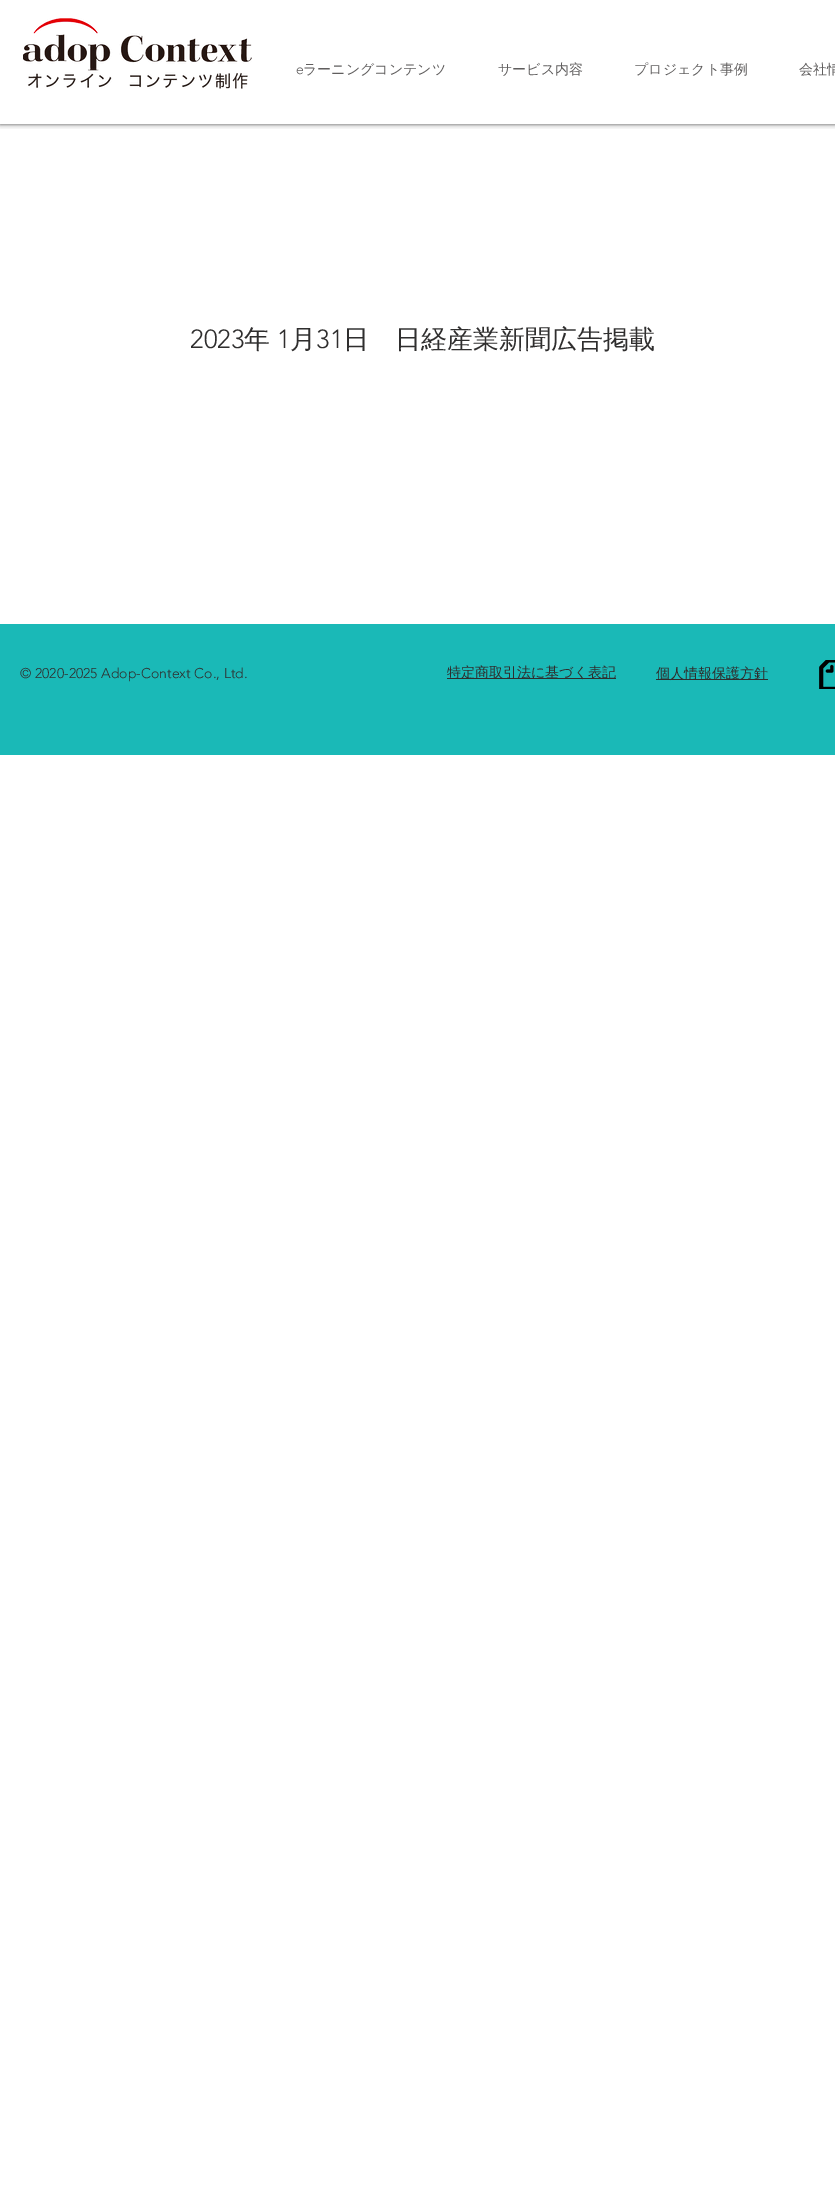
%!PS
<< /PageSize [835 2194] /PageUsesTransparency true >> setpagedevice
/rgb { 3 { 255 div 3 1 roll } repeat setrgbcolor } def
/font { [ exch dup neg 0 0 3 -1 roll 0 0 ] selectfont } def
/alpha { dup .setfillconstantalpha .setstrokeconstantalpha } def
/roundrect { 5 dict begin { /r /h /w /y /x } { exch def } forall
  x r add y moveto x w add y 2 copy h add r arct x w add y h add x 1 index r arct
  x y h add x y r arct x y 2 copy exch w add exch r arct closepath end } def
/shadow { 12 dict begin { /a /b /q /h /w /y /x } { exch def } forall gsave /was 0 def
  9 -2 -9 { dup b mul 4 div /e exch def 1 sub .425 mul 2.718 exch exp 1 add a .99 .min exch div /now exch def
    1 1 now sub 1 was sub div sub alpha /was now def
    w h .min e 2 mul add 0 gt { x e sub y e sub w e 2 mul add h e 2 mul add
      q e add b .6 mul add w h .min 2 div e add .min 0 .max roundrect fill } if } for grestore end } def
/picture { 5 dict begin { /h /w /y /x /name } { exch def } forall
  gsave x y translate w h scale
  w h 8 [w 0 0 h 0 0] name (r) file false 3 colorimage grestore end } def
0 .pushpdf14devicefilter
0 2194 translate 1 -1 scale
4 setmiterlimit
255 255 255 rgb
0 0 835 2194 rectfill
gsave
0 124 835 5 rectclip
0 0 0 rgb
0 0 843 124 0 2.5 0.7 shadow
grestore
(img/1.rgb) 23 18 229 71 picture
[
  [0 624 835 131 26 185 183]
  [447 678 169 1 47 46 46]
  [656 679 112 1 47 46 46]
] { aload pop rgb rectfill } forall
(img/2.rgb) 819 660 16 29 picture
/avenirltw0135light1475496-Light 14 font
96 94 94 rgb
296 74 moveto (e) show
/WenQuanYiZenHei-Medium 14 font
[
  [(ラーニングコンテンツ) 303 74]
  [(サービス内容) 498 74]
  [(プロジェクト事例) 634 74]
  [(会社情) 799 74]
] { aload pop moveto show } forall
/avenirltw0135light1475496-Light 26 font
47 46 46 rgb
190 348 moveto (2023) show
/WenQuanYiZenHei-Medium 26 font
244 348 moveto (年) show
/avenirltw0135light1475496-Light 26 font
277 348 moveto (1) show
/WenQuanYiZenHei-Medium 26 font
290 348 moveto (月) show
/avenirltw0135light1475496-Light 26 font
316 348 moveto (31) show
/WenQuanYiZenHei-Medium 26 font
343 348 moveto (日　日経産業新聞広告掲載) show
/avenirltw0135light1475496-Light 14 font
20 678 moveto (© 2020-2025 Adop-Context Co., Ltd.) show
/WenQuanYiZenHei-Medium 14 font
447 677 moveto (特定商取引法に基づく表記) show
656 678 moveto (個人情報保護方針) show
.poppdf14devicefilter showpage
